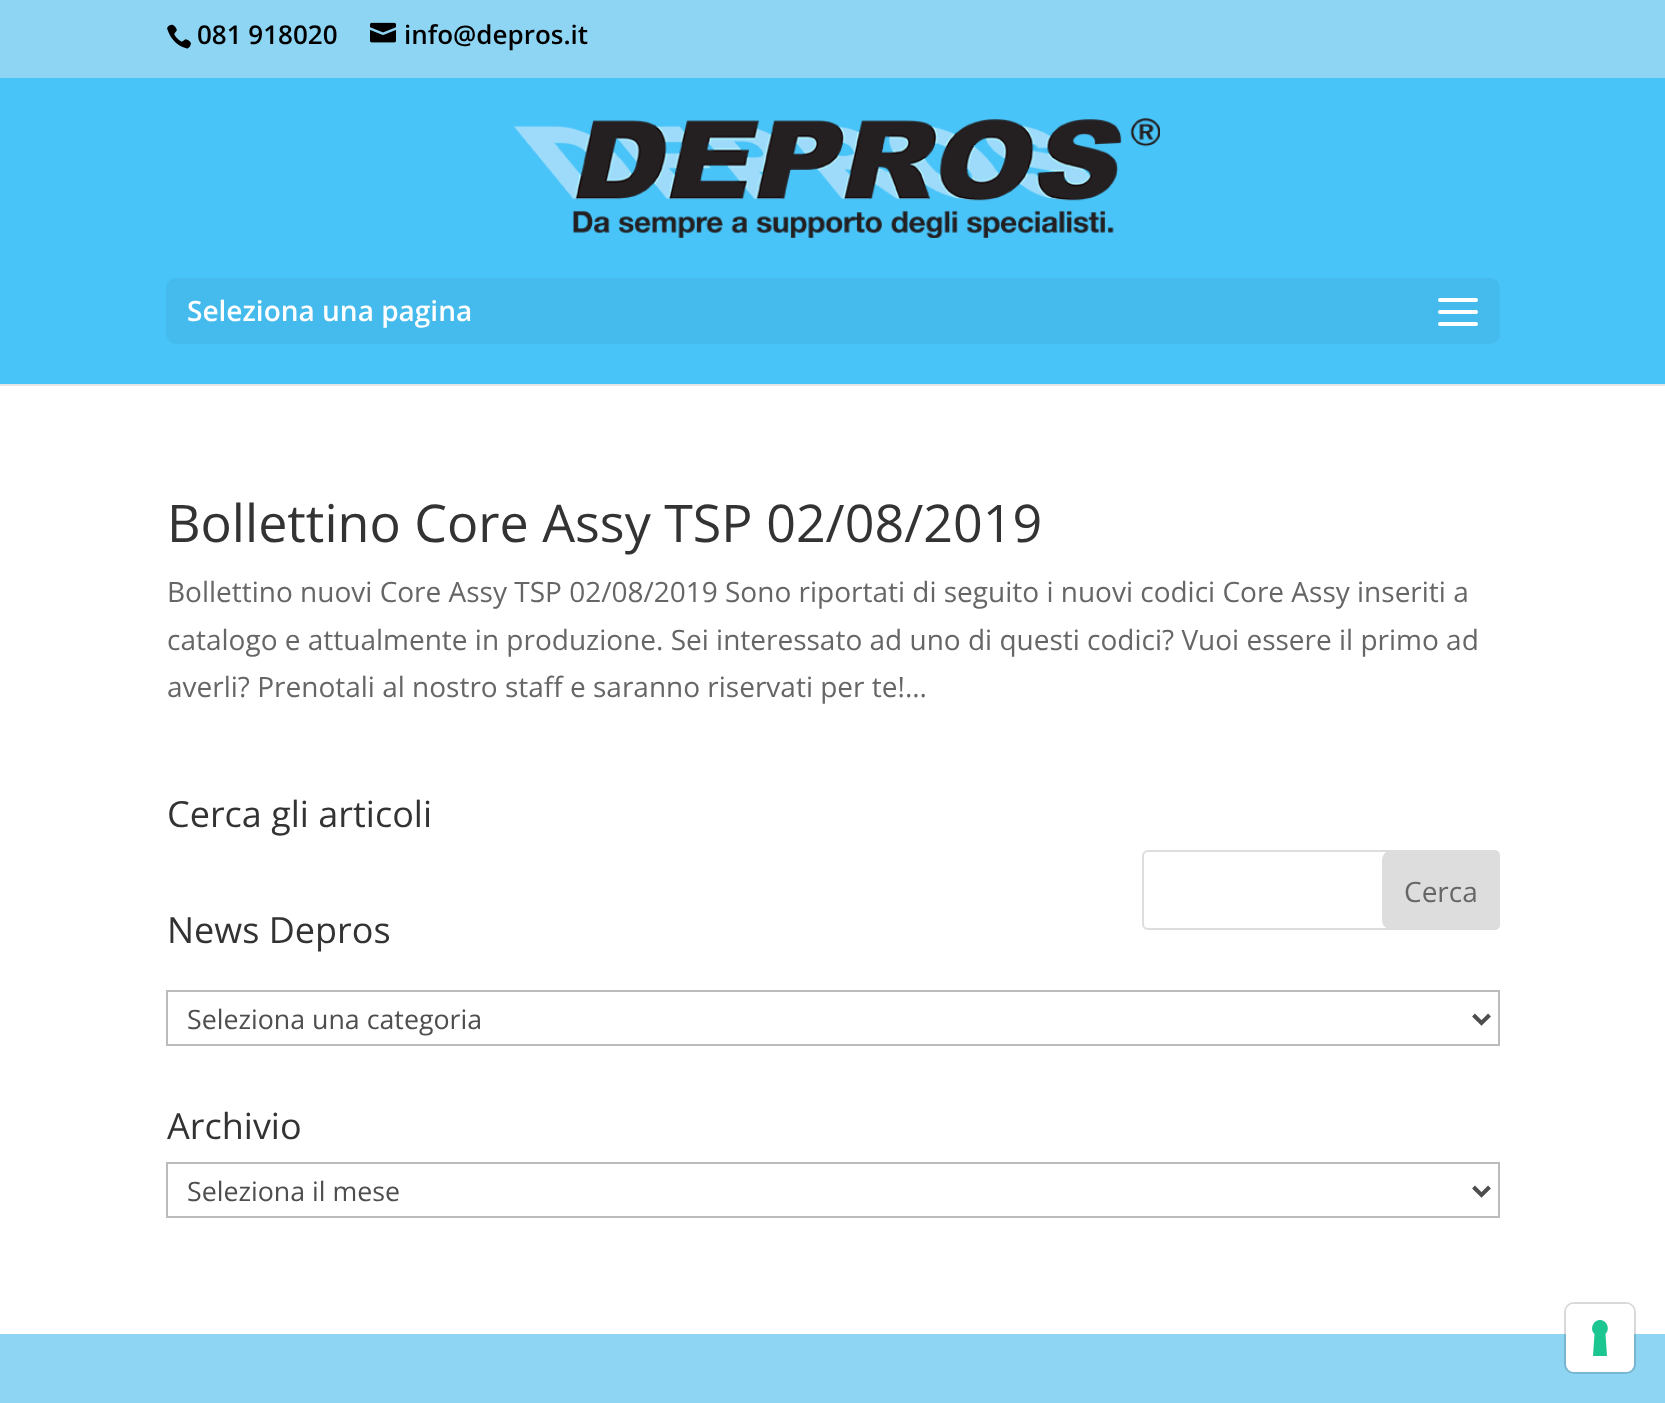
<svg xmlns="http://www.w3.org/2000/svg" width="1665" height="1403">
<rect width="100%" height="100%" fill="#fff"/>
<rect width="1665" height="78" fill="#8ed5f4"/>
<image x="167" y="24" width="24" height="25" href="media/1.png"/>
<text x="197" y="44" style="font-family:Open Sans;font-size:26px;font-weight:600;fill:#000">081 918020</text>
<image x="370" y="22" width="26" height="21" href="media/2.png"/>
<text x="404" y="44" style="font-family:Open Sans;font-size:26px;font-weight:600;fill:#000">info@depros.it</text>
<rect y="384" width="1665" height="2" fill="#e6e6e6"/>
<rect y="78" width="1665" height="306" fill="#49c4f9"/>
<image x="514" y="118" width="646" height="120" href="media/3.png"/>
<rect x="166" y="278" width="1334" height="66" rx="10" fill="#45baec"/>
<text x="187" y="321" style="font-family:Open Sans;font-size:28px;font-weight:600;fill:#fff">Seleziona una pagina</text>
<image x="1438" y="298" width="40" height="28" href="media/4.png"/>
<text x="167" y="542" style="font-family:Open Sans;font-size:52px;fill:#333">Bollettino Core Assy TSP 02/08/2019</text>
<text x="167" y="602" style="font-family:Open Sans;font-size:28px;fill:#666">Bollettino nuovi Core Assy TSP 02/08/2019 Sono riportati di seguito i nuovi codici Core Assy inseriti a</text>
<text x="167" y="650" style="font-family:Open Sans;font-size:28px;fill:#666">catalogo e attualmente in produzione. Sei interessato ad uno di questi codici? Vuoi essere il primo ad</text>
<text x="167" y="697" style="font-family:Open Sans;font-size:28px;fill:#666">averli? Prenotali al nostro staff e saranno riservati per te!...</text>
<text x="167" y="827" style="font-family:Open Sans;font-size:36px;fill:#333">Cerca gli articoli</text>
<rect x="1143" y="851" width="356" height="78" rx="5" fill="none" stroke="#ddd" stroke-width="2"/>
<path d="M1392 851h102c3 0 5 2 5 5v68c0 3-2 5-5 5h-102c-5 0-9-4-9-9v-60c0-5 4-9 9-9z" fill="#ddd" stroke="#ddd" stroke-width="2"/>
<text x="1404" y="902" style="font-family:Open Sans;font-size:28px;fill:#666">Cerca</text>
<text x="167" y="943" style="font-family:Open Sans;font-size:36px;fill:#333">News Depros</text>
<rect x="167" y="991" width="1332" height="54" fill="none" stroke="#bbb" stroke-width="2"/>
<path d="M1473.5 1015l8 8l8-8" fill="none" stroke="#4e4e4e" stroke-width="4"/>
<text x="187" y="1029" style="font-family:Open Sans;font-size:26.75px;fill:#4e4e4e">Seleziona una categoria</text>
<text x="167" y="1139" style="font-family:Open Sans;font-size:36px;fill:#333">Archivio</text>
<rect x="167" y="1163" width="1332" height="54" fill="none" stroke="#bbb" stroke-width="2"/>
<path d="M1473.5 1187l8 8l8-8" fill="none" stroke="#4e4e4e" stroke-width="4"/>
<text x="187" y="1201" style="font-family:Open Sans;font-size:26.75px;fill:#4e4e4e">Seleziona il mese</text>
<rect y="1334" width="1665" height="69" fill="#8ed5f4"/>
<rect x="1565" y="1303" width="70" height="70" rx="9" fill="none" stroke="#00000026" stroke-width="2"/>
<rect x="1566" y="1304" width="68" height="68" rx="8" fill="#fff"/>
<path d="M1600 1320c7 0 10.5 9.5 5.5 14l1.5 22h-14l1.5-22c-5-4.5-1.5-14 5.5-14z" fill="#1cc691" fill-rule="evenodd"/>
</svg>
